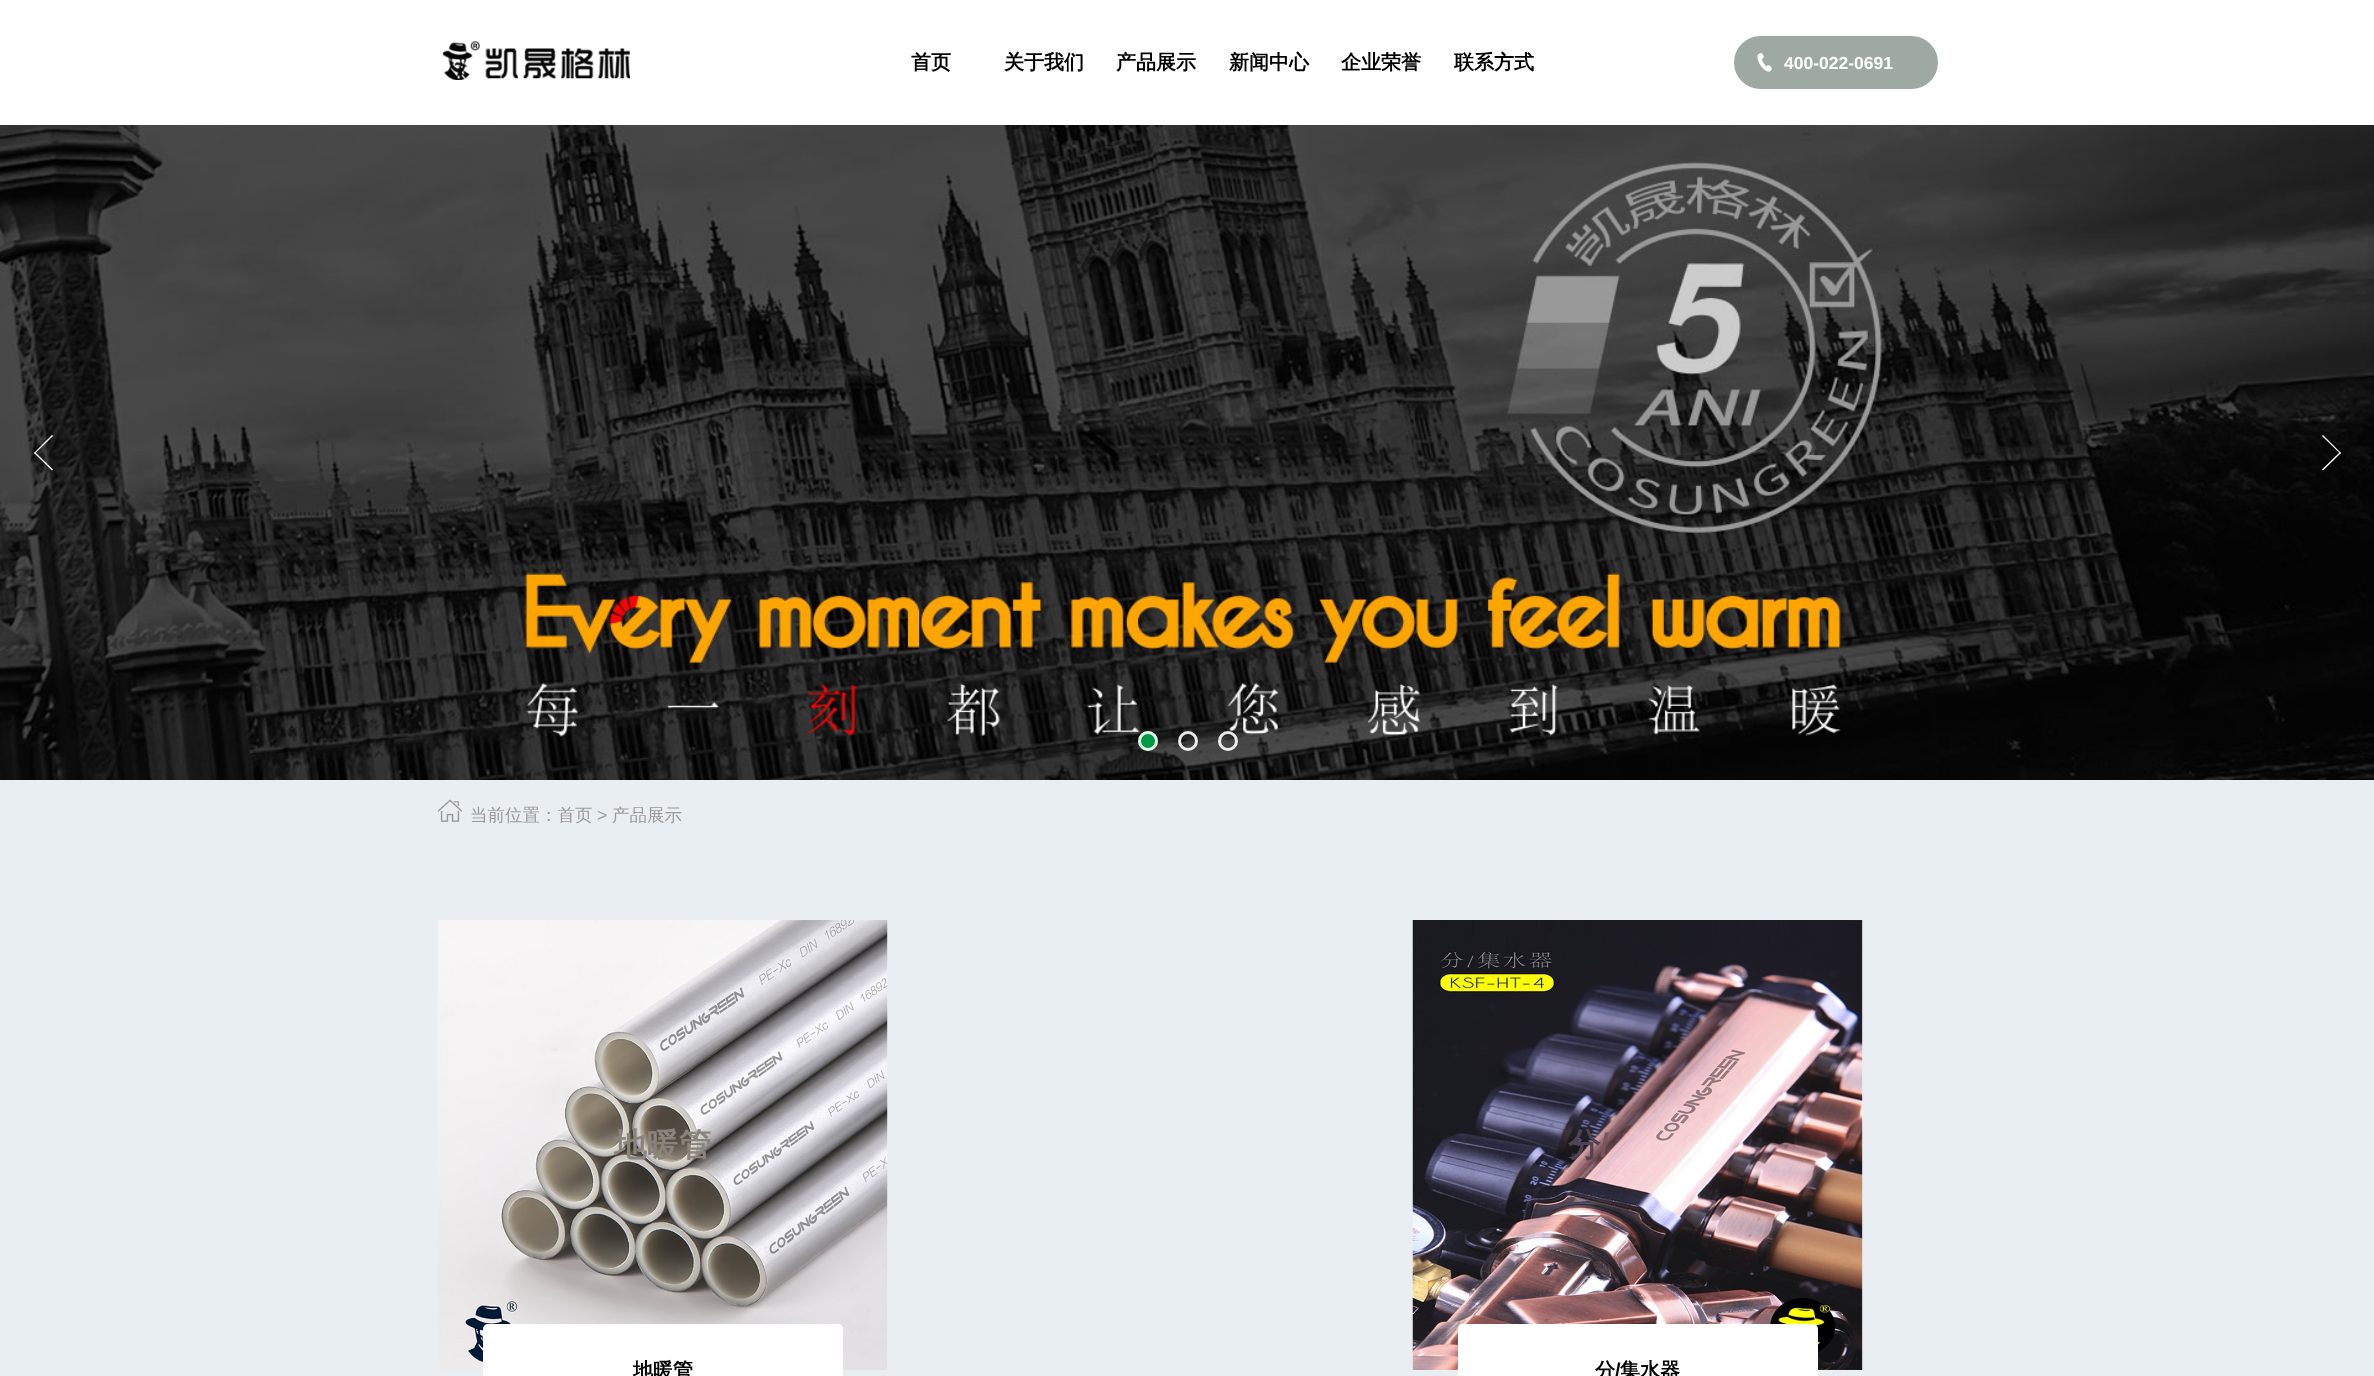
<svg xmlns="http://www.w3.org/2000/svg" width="2374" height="1376">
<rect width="100%" height="100%" fill="#e9eef3"/>
<rect width="2374" height="125" fill="#fff"/>
<image x="442" y="41" width="188" height="39" href="media/1.png"/>
<text x="911" y="69" style="font-family:WenQuanYi Zen Hei;font-size:20px;font-weight:bold;fill:#000">首页</text>
<text x="1004" y="69" style="font-family:WenQuanYi Zen Hei;font-size:20px;font-weight:bold;fill:#000">关于我们</text>
<text x="1116" y="69" style="font-family:WenQuanYi Zen Hei;font-size:20px;font-weight:bold;fill:#000">产品展示</text>
<text x="1229" y="69" style="font-family:WenQuanYi Zen Hei;font-size:20px;font-weight:bold;fill:#000">新闻中心</text>
<text x="1341" y="69" style="font-family:WenQuanYi Zen Hei;font-size:20px;font-weight:bold;fill:#000">企业荣誉</text>
<text x="1454" y="69" style="font-family:WenQuanYi Zen Hei;font-size:20px;font-weight:bold;fill:#000">联系方式</text>
<rect x="1734" y="36" width="204" height="53" rx="26.5" fill="#9da9a2"/>
<image x="1757" y="53" width="15" height="19" href="media/2.png"/>
<text x="1784" y="69" style="font-family:Liberation Sans;font-size:17.5px;font-weight:bold;fill:#fff">400-022-0691</text>
<image x="0" y="125" width="2374" height="655" href="media/3.png"/>
<path d="M35 452l18 17.5l-1 1l-18-17.5z" fill="#fff"/>
<path d="M52 435l1 1l-18 17.5l-1-.5z" fill="#fff"/>
<path d="M2323 435l18 18l-1 .5l-18-17.5z" fill="#fff"/>
<path d="M2340 452l1 1l-18 17.5l-1-1z" fill="#fff"/>
<circle cx="1148" cy="741" r="10" fill="#094"/>
<circle cx="1148" cy="741" r="8.5" fill="none" stroke="#ffffffe6" stroke-width="3"/>
<circle cx="1188" cy="741" r="8.5" fill="none" stroke="#ffffffe6" stroke-width="3"/>
<circle cx="1228" cy="741" r="8.5" fill="none" stroke="#ffffffe6" stroke-width="3"/>
<image x="437" y="799" width="26" height="23" href="media/4.png"/>
<text x="470" y="821" style="font-family:WenQuanYi Zen Hei;font-size:17.5px;font-weight:500;fill:#999">当前位置：首页</text>
<text x="597" y="821" style="font-family:Liberation Sans;font-size:17.5px;fill:#999">&gt;</text>
<text x="612" y="821" style="font-family:WenQuanYi Zen Hei;font-size:17.5px;font-weight:500;fill:#999">产品展示</text>
<image x="437" y="920" width="451" height="450" href="media/5.png"/>
<text x="614" y="1156" style="font-family:WenQuanYi Zen Hei;font-size:32.5px;font-weight:bold;fill:#8a847c">地暖管</text>
<rect x="483" y="1324" width="360" height="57" rx="5" fill="#fff"/>
<text x="633" y="1377" style="font-family:WenQuanYi Zen Hei;font-size:20px;font-weight:bold;fill:#000">地暖管</text>
<image x="1412" y="920" width="451" height="450" href="media/6.png"/>
<text x="1568" y="1156" style="font-family:WenQuanYi Zen Hei;font-size:32.5px;font-weight:bold;fill:#51424f">分</text>
<text x="1600" y="1156" style="font-family:Liberation Sans;font-size:32.5px;font-weight:bold;fill:#7a555c">/</text>
<rect x="1458" y="1324" width="360" height="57" rx="5" fill="#fff"/>
<text x="1595" y="1377" style="font-family:WenQuanYi Zen Hei;font-size:20px;font-weight:bold;fill:#000">分</text>
<text x="1615" y="1377" style="font-family:Liberation Sans;font-size:20px;font-weight:bold;fill:#000">/</text>
<text x="1620" y="1377" style="font-family:WenQuanYi Zen Hei;font-size:20px;font-weight:bold;fill:#000">集水器</text>
</svg>
